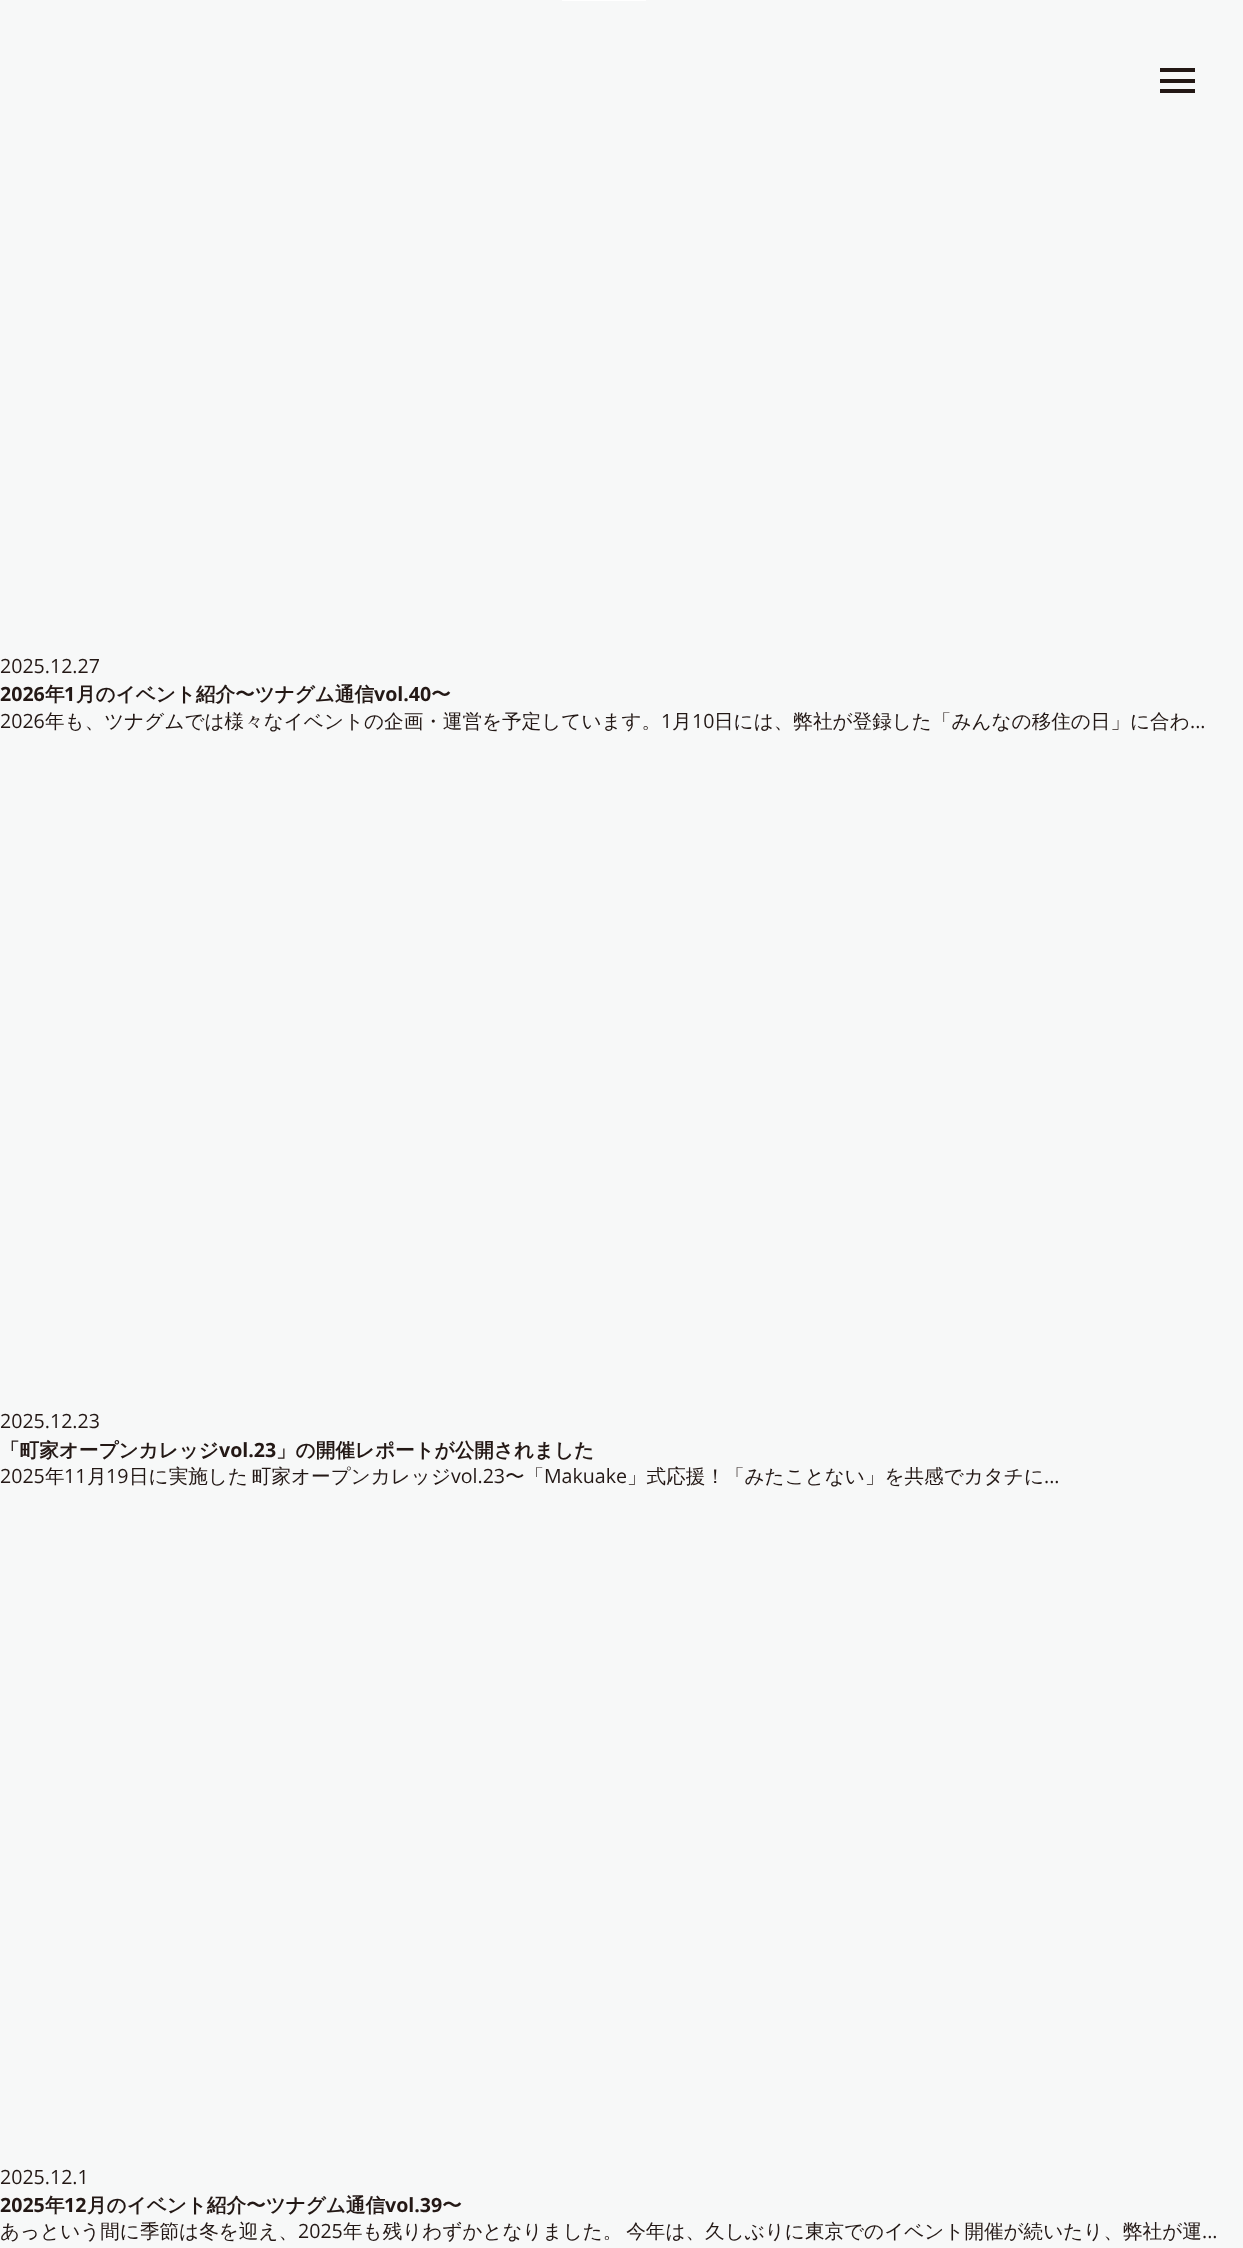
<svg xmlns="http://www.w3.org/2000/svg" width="1243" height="2248">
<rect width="100%" height="100%" fill="#f7f8f8"/>
<rect x="1160" y="68" width="35" height="4" fill="#231815"/>
<rect x="1160" y="79" width="35" height="4" fill="#231815"/>
<rect x="1160" y="89" width="35" height="4" fill="#231815"/>
<rect x="562" width="84" height="1" fill="#fff"/>
<text x="0" y="673" style="font-family:Open Sans;font-size:19.6px;fill:#231815">2025.12.27</text>
<text x="0" y="701" style="font-family:Open Sans;font-size:19.6px;font-weight:bold;fill:#231815">2026</text>
<text x="45" y="701" style="font-family:WenQuanYi Zen Hei;font-size:19.6px;font-weight:bold;fill:#231815">年</text>
<text x="64" y="701" style="font-family:Open Sans;font-size:19.6px;font-weight:bold;fill:#231815">1</text>
<text x="76" y="701" style="font-family:WenQuanYi Zen Hei;font-size:19.6px;font-weight:bold;fill:#231815">月のイベント紹介〜ツナグム通信</text>
<text x="374" y="701" style="font-family:Open Sans;font-size:19.6px;font-weight:bold;fill:#231815">vol.40</text>
<text x="431" y="701" style="font-family:WenQuanYi Zen Hei;font-size:19.6px;font-weight:bold;fill:#231815">〜</text>
<text x="0" y="728" style="font-family:Open Sans;font-size:19.6px;fill:#231815">2026</text>
<text x="45" y="728" style="font-family:WenQuanYi Zen Hei;font-size:19.6px;font-weight:500;fill:#231815">年も、ツナグムでは様々なイベントの企画・運営を予定しています。</text>
<text x="661" y="728" style="font-family:Open Sans;font-size:19.6px;fill:#231815">1</text>
<text x="672" y="728" style="font-family:WenQuanYi Zen Hei;font-size:19.6px;font-weight:500;fill:#231815">月</text>
<text x="692" y="728" style="font-family:Open Sans;font-size:19.6px;fill:#231815">10</text>
<text x="714" y="728" style="font-family:WenQuanYi Zen Hei;font-size:19.6px;font-weight:500;fill:#231815">日には、弊社が登録した「みんなの移住の日」に合わ</text>
<text x="1190" y="728" style="font-family:Open Sans;font-size:19.6px;fill:#231815">...</text>
<text x="0" y="1428" style="font-family:Open Sans;font-size:19.6px;fill:#231815">2025.12.23</text>
<text x="0" y="1457" style="font-family:WenQuanYi Zen Hei;font-size:19.6px;font-weight:bold;fill:#231815">「町家オープンカレッジ</text>
<text x="219" y="1457" style="font-family:Open Sans;font-size:19.6px;font-weight:bold;fill:#231815">vol.23</text>
<text x="276" y="1457" style="font-family:WenQuanYi Zen Hei;font-size:19.6px;font-weight:bold;fill:#231815">」の開催レポートが公開されました</text>
<text x="0" y="1483" style="font-family:Open Sans;font-size:19.6px;fill:#231815">2025</text>
<text x="45" y="1483" style="font-family:WenQuanYi Zen Hei;font-size:19.6px;font-weight:500;fill:#231815">年</text>
<text x="64" y="1483" style="font-family:Open Sans;font-size:19.6px;fill:#231815">11</text>
<text x="87" y="1483" style="font-family:WenQuanYi Zen Hei;font-size:19.6px;font-weight:500;fill:#231815">月</text>
<text x="106" y="1483" style="font-family:Open Sans;font-size:19.6px;fill:#231815">19</text>
<text x="129" y="1483" word-spacing="-2" style="font-family:WenQuanYi Zen Hei;font-size:19.6px;font-weight:500;fill:#231815">日に実施した 町家オープンカレッジ</text>
<text x="451" y="1483" style="font-family:Open Sans;font-size:19.6px;fill:#231815">vol.23</text>
<text x="505" y="1483" style="font-family:WenQuanYi Zen Hei;font-size:19.6px;font-weight:500;fill:#231815">〜「</text>
<text x="544" y="1483" style="font-family:Open Sans;font-size:19.6px;fill:#231815">Makuake</text>
<text x="627" y="1483" style="font-family:WenQuanYi Zen Hei;font-size:19.6px;font-weight:500;fill:#231815">」式応援！「みたことない」を共感でカタチに</text>
<text x="1044" y="1483" style="font-family:Open Sans;font-size:19.6px;fill:#231815">...</text>
<text x="0" y="2184" style="font-family:Open Sans;font-size:19.6px;fill:#231815">2025.12.1</text>
<text x="0" y="2212" style="font-family:Open Sans;font-size:19.6px;font-weight:bold;fill:#231815">2025</text>
<text x="45" y="2212" style="font-family:WenQuanYi Zen Hei;font-size:19.6px;font-weight:bold;fill:#231815">年</text>
<text x="64" y="2212" style="font-family:Open Sans;font-size:19.6px;font-weight:bold;fill:#231815">12</text>
<text x="87" y="2212" style="font-family:WenQuanYi Zen Hei;font-size:19.6px;font-weight:bold;fill:#231815">月のイベント紹介〜ツナグム通信</text>
<text x="385" y="2212" style="font-family:Open Sans;font-size:19.6px;font-weight:bold;fill:#231815">vol.39</text>
<text x="442" y="2212" style="font-family:WenQuanYi Zen Hei;font-size:19.6px;font-weight:bold;fill:#231815">〜</text>
<text x="0" y="2238" style="font-family:WenQuanYi Zen Hei;font-size:19.6px;font-weight:500;fill:#231815">あっという間に季節は冬を迎え、</text>
<text x="298" y="2238" style="font-family:Open Sans;font-size:19.6px;fill:#231815">2025</text>
<text x="343" y="2238" word-spacing="-2" style="font-family:WenQuanYi Zen Hei;font-size:19.6px;font-weight:500;fill:#231815">年も残りわずかとなりました。 今年は、久しぶりに東京でのイベント開催が続いたり、弊社が運</text>
<text x="1202" y="2238" style="font-family:Open Sans;font-size:19.6px;fill:#231815">...</text>
</svg>
